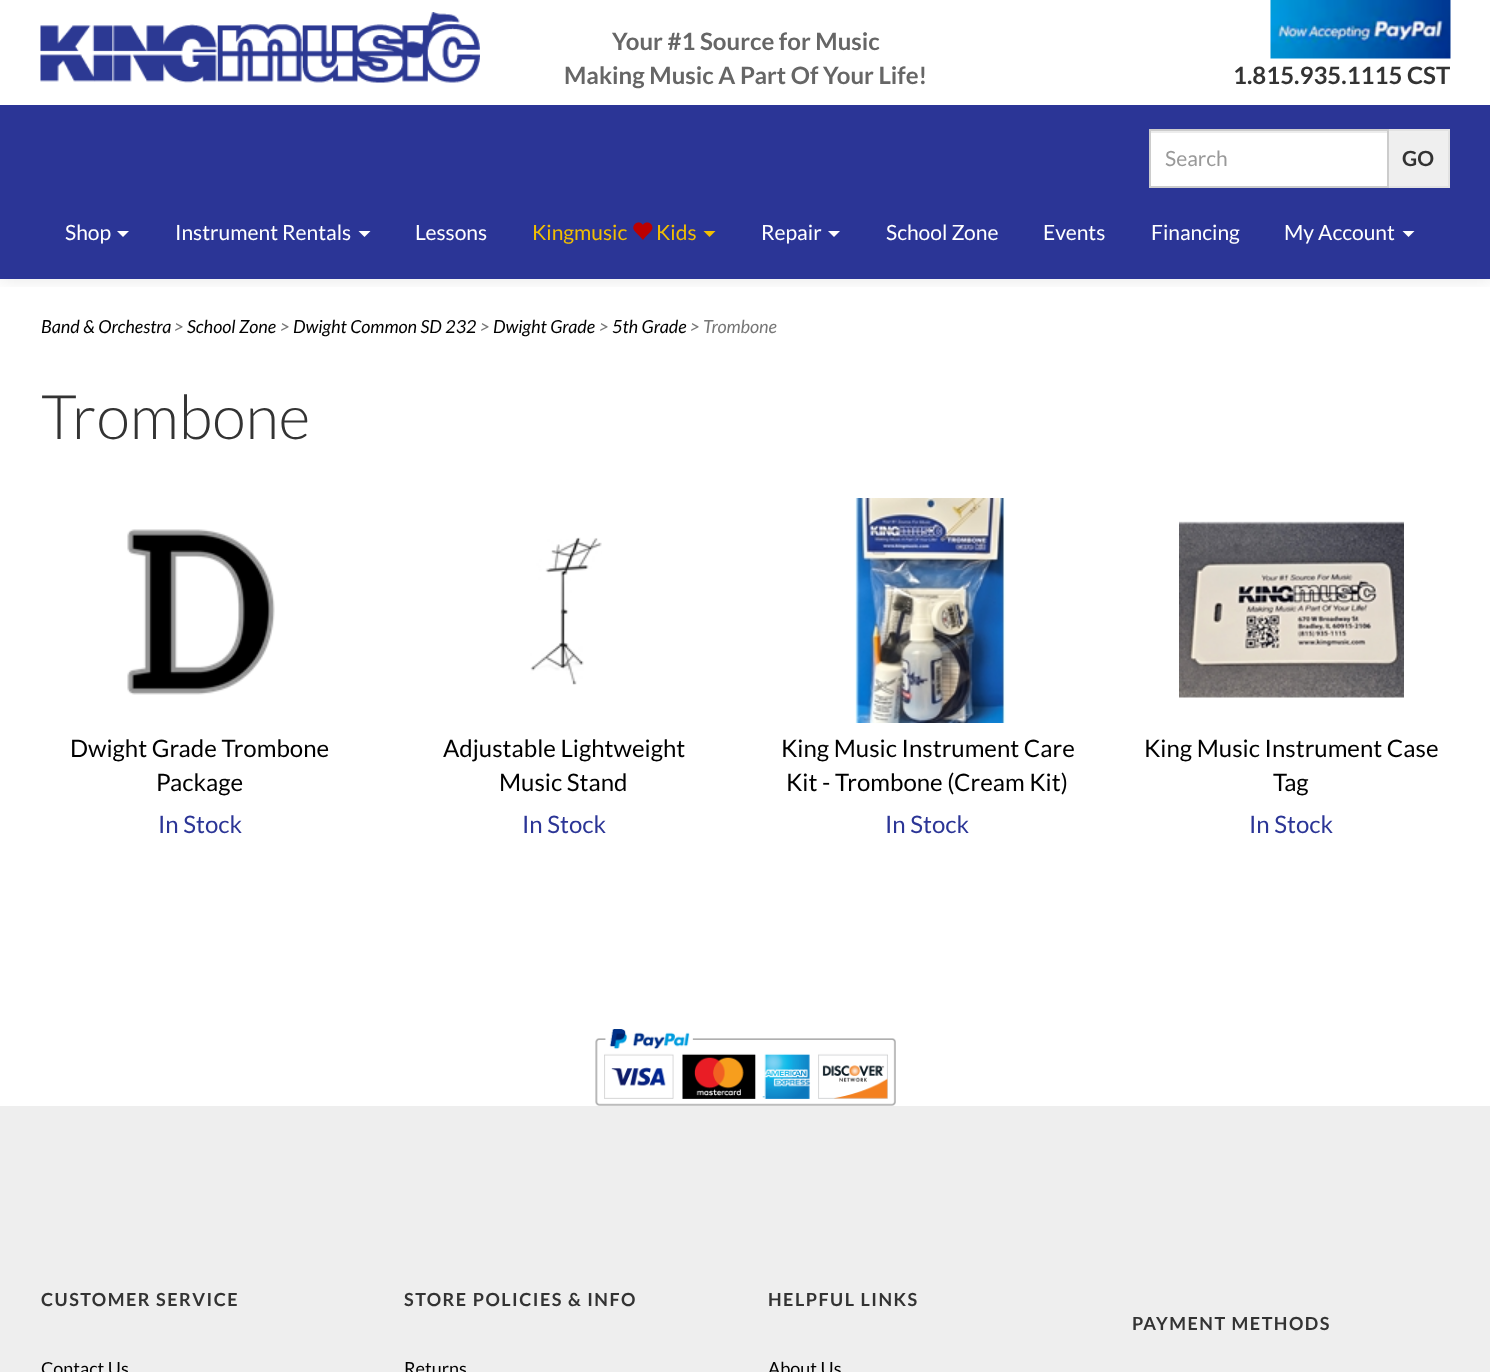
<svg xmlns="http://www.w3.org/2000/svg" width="1490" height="1372">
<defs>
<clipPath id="clip1"><rect x="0" y="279" width="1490" height="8"/></clipPath>
</defs>
<rect width="100%" height="100%" fill="#fff"/>
<g clip-path="url(#clip1)">
<rect width="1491" height="279" fill="#0000001a" filter="blur(9px)"/>
</g>
<image x="40" y="12" width="440" height="71" href="media/1.png"/>
<text x="612" y="50" style="font-family:Lato;font-size:24px;font-weight:bold;fill:#666">Your #1 Source for Music</text>
<text x="564" y="84" style="font-family:Lato;font-size:24px;font-weight:bold;fill:#666">Making Music A Part Of Your Life!</text>
<image x="1270" y="0" width="181" height="59" href="media/2.png"/>
<text x="1233" y="84" style="font-family:Lato;font-size:24px;font-weight:bold;fill:#333">1.815.935.1115 CST</text>
<rect y="105" width="1490" height="174" fill="#2b3596"/>
<rect x="1151" y="133" width="236" height="53" fill="#fff"/>
<rect x="1151" y="131" width="237" height="2" fill="#ececec"/>
<rect x="1150" y="130" width="238" height="57" fill="none" stroke="#ccc" stroke-width="2"/>
<text x="1165" y="166" style="font-family:Lato;font-size:21px;fill:#999">Search</text>
<rect x="1389" y="131" width="59" height="55" fill="#efefef"/>
<rect x="1389" y="129" width="60" height="2" fill="#e2e2e2"/>
<rect x="1448" y="129" width="2" height="59" fill="#e2e2e2"/>
<rect x="1389" y="186" width="60" height="2" fill="#e2e2e2"/>
<text x="1402" y="166" style="font-family:Lato;font-size:21px;font-weight:bold;fill:#333">GO</text>
<text x="65" y="240" style="font-family:Lato;font-size:21px;fill:#fff">Shop</text>
<path d="M117 231h12l-6 6z" fill="#fff"/>
<text x="175" y="240" style="font-family:Lato;font-size:21px;fill:#fff">Instrument Rentals</text>
<path d="M358.5 231h12l-6 6z" fill="#fff"/>
<text x="415" y="240" style="font-family:Lato;font-size:21px;fill:#fff">Lessons</text>
<text x="532" y="240" style="font-family:Lato;font-size:21px;fill:#f1be02">Kingmusic</text>
<image x="633" y="222" width="20" height="18" href="media/3.png"/>
<text x="656" y="240" style="font-family:Lato;font-size:21px;fill:#f1be02">Kids</text>
<path d="M703.5 231h12l-6 6z" fill="#f1be02"/>
<text x="761" y="240" style="font-family:Lato;font-size:21px;fill:#fff">Repair</text>
<path d="M828 231h12l-6 6z" fill="#fff"/>
<text x="886" y="240" style="font-family:Lato;font-size:21px;fill:#fff">School Zone</text>
<text x="1043" y="240" style="font-family:Lato;font-size:21px;fill:#fff">Events</text>
<text x="1151" y="240" style="font-family:Lato;font-size:21px;fill:#fff">Financing</text>
<text x="1284" y="240" style="font-family:Lato;font-size:21px;fill:#fff">My Account</text>
<path d="M1402.5 231h12l-6 6z" fill="#fff"/>
<text x="41" y="333" style="font-family:Lato;font-size:18px;font-style:italic;fill:#000">Band &amp; Orchestra</text>
<text x="174" y="333" style="font-family:Lato;font-size:18px;font-style:italic;fill:#777">&gt;</text>
<text x="187" y="333" style="font-family:Lato;font-size:18px;font-style:italic;fill:#000">School Zone</text>
<text x="280" y="333" style="font-family:Lato;font-size:18px;font-style:italic;fill:#777">&gt;</text>
<text x="293" y="333" style="font-family:Lato;font-size:18px;font-style:italic;fill:#000">Dwight Common SD 232</text>
<text x="480" y="333" style="font-family:Lato;font-size:18px;font-style:italic;fill:#777">&gt;</text>
<text x="493" y="333" style="font-family:Lato;font-size:18px;font-style:italic;fill:#000">Dwight Grade</text>
<text x="599" y="333" style="font-family:Lato;font-size:18px;font-style:italic;fill:#777">&gt;</text>
<text x="612" y="333" style="font-family:Lato;font-size:18px;font-style:italic;fill:#000">5th Grade</text>
<text x="690" y="333" style="font-family:Lato;font-size:18px;font-style:italic;fill:#777">&gt; Trombone</text>
<text x="41" y="439" style="font-family:Lato;font-size:61.5px;font-weight:300;fill:#333">Trombone</text>
<image x="127" y="529" width="148" height="166" href="media/4.png"/>
<text x="70" y="757" style="font-family:Lato;font-size:24px;fill:#000">Dwight Grade Trombone</text>
<text x="156" y="791" style="font-family:Lato;font-size:24px;fill:#000">Package</text>
<text x="158" y="833" style="font-family:Lato;font-size:24px;fill:#2b3596">In Stock</text>
<image x="530" y="537" width="72" height="148" href="media/5.png"/>
<text x="443" y="757" style="font-family:Lato;font-size:24px;fill:#000">Adjustable Lightweight</text>
<text x="499" y="791" style="font-family:Lato;font-size:24px;fill:#000">Music Stand</text>
<text x="522" y="833" style="font-family:Lato;font-size:24px;fill:#2b3596">In Stock</text>
<image x="855" y="498" width="151" height="225" href="media/6.png"/>
<text x="781" y="757" style="font-family:Lato;font-size:24px;fill:#000">King Music Instrument Care</text>
<text x="786" y="791" style="font-family:Lato;font-size:24px;fill:#000">Kit - Trombone (Cream Kit)</text>
<text x="885" y="833" style="font-family:Lato;font-size:24px;fill:#2b3596">In Stock</text>
<image x="1179" y="521" width="225" height="177" href="media/7.png"/>
<text x="1144" y="757" style="font-family:Lato;font-size:24px;fill:#000">King Music Instrument Case</text>
<text x="1273" y="791" style="font-family:Lato;font-size:24px;fill:#000">Tag</text>
<text x="1249" y="833" style="font-family:Lato;font-size:24px;fill:#2b3596">In Stock</text>
<image x="595" y="1029" width="301" height="77" href="media/8.png"/>
<rect y="1106" width="1490" height="266" fill="#eee"/>
<text x="41" y="1306" style="font-family:Lato;font-size:18px;font-weight:bold;letter-spacing:1.5px;fill:#333">CUSTOMER SERVICE</text>
<text x="41" y="1375" style="font-family:Lato;font-size:18px;fill:#000">Contact Us</text>
<text x="404" y="1306" style="font-family:Lato;font-size:18px;font-weight:bold;letter-spacing:1.5px;fill:#333">STORE POLICIES &amp; INFO</text>
<text x="404" y="1375" style="font-family:Lato;font-size:18px;fill:#000">Returns</text>
<text x="768" y="1306" style="font-family:Lato;font-size:18px;font-weight:bold;letter-spacing:1.5px;fill:#333">HELPFUL LINKS</text>
<text x="768" y="1375" style="font-family:Lato;font-size:18px;fill:#000">About Us</text>
<text x="1132" y="1330" style="font-family:Lato;font-size:18px;font-weight:bold;letter-spacing:1.5px;fill:#333">PAYMENT METHODS</text>
</svg>
